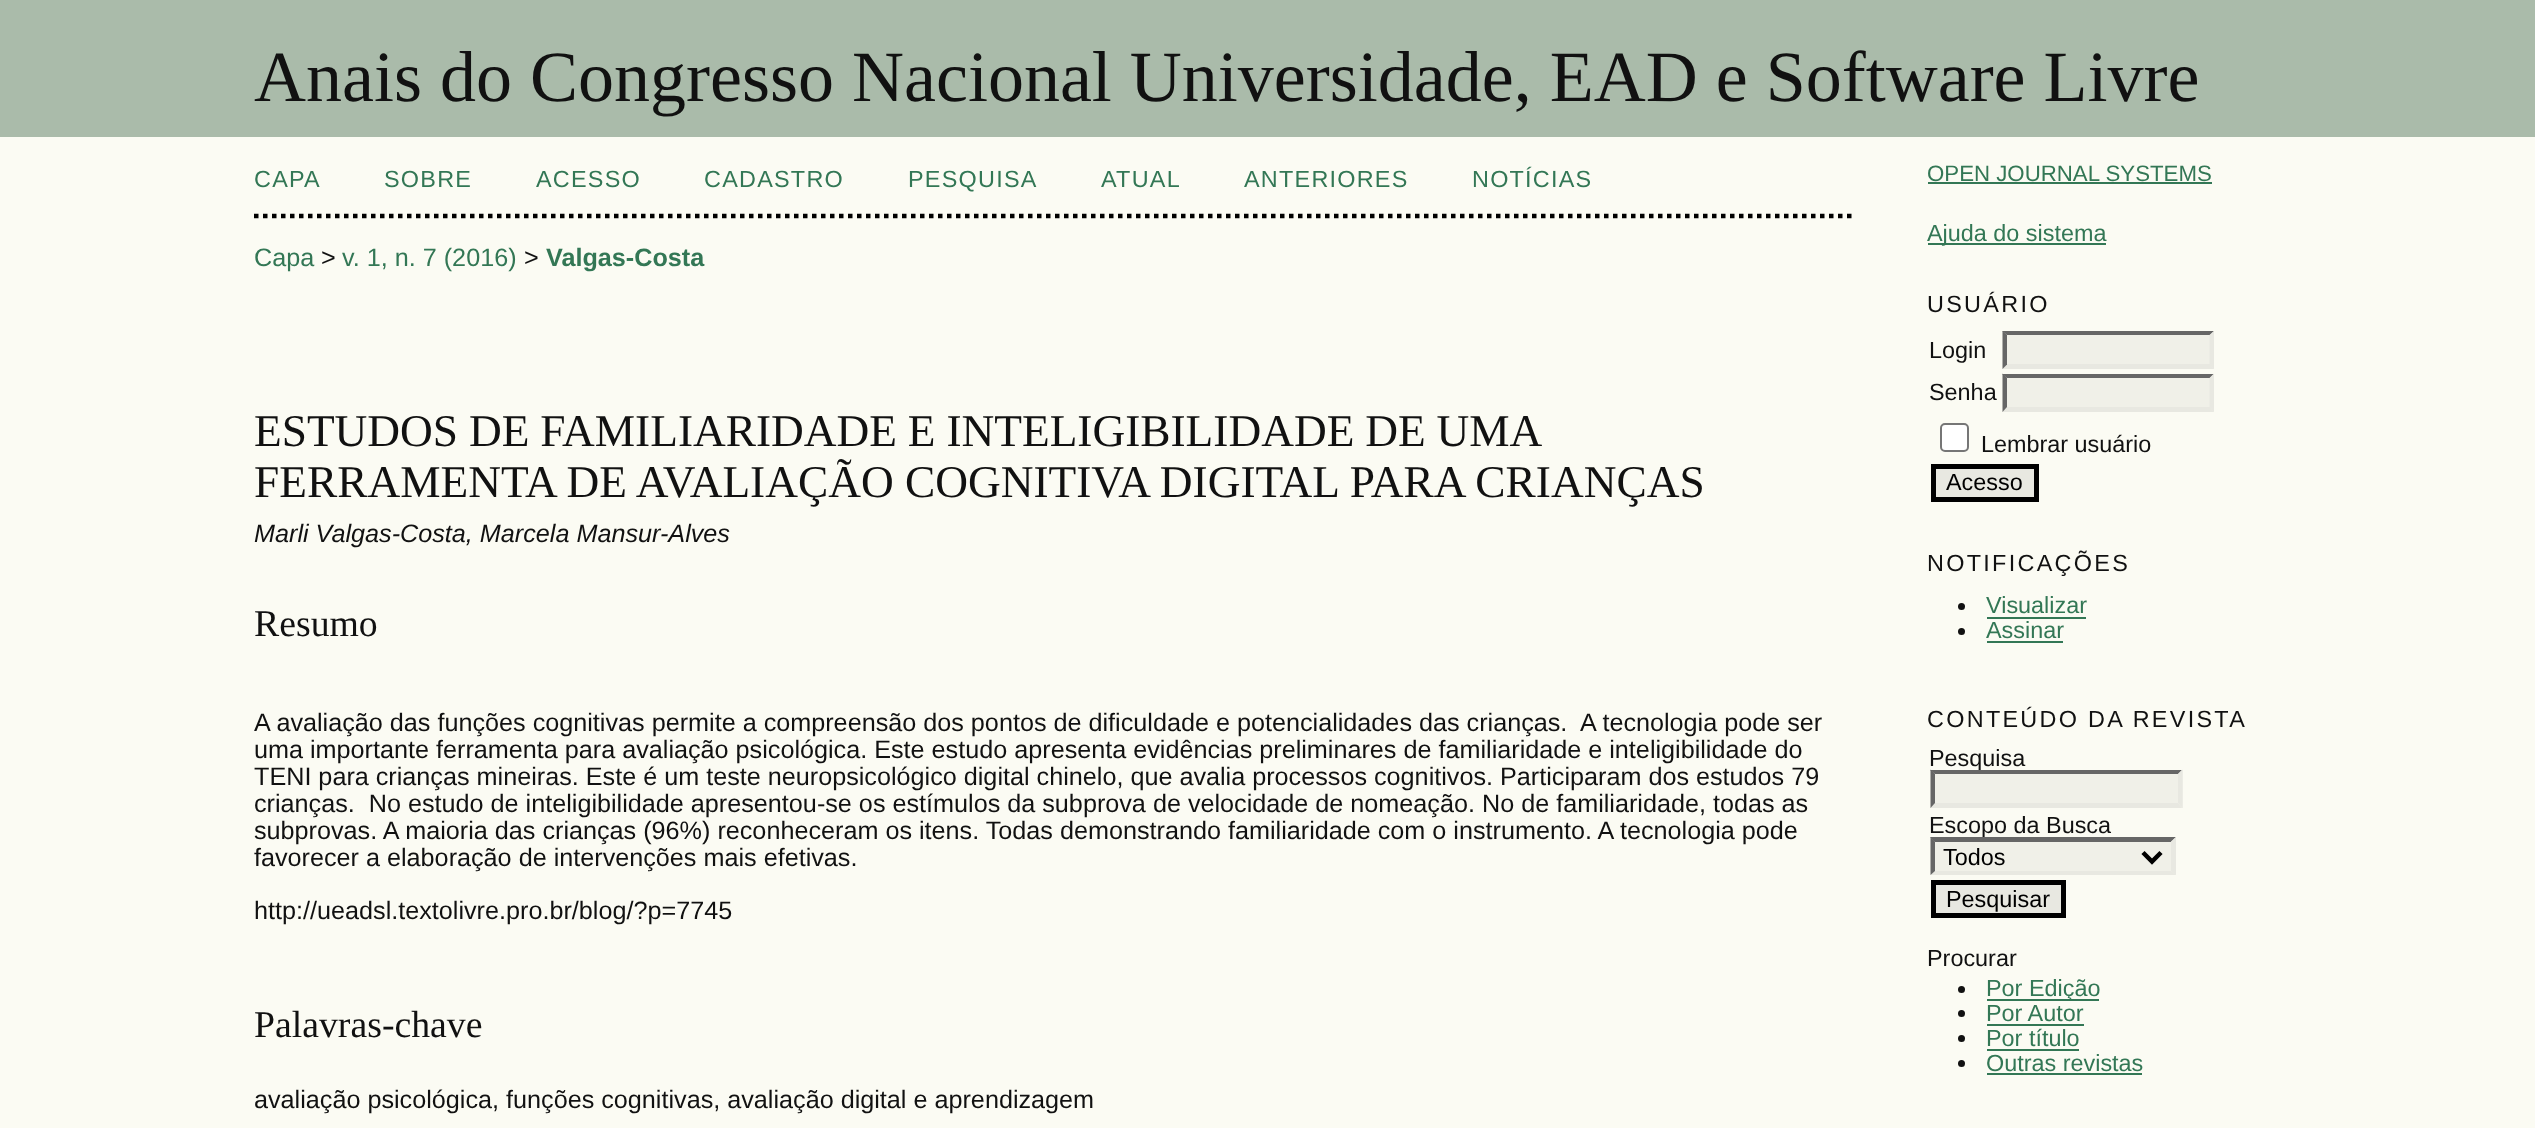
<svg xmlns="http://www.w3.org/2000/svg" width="2535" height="1128">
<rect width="100%" height="100%" fill="#fbfbf3"/>
<rect width="2535" height="137" fill="#aba"/>
<text x="254" y="101" style="font-family:Liberation Serif;font-size:72px;fill:#111">Anais do Congresso Nacional Universidade, EAD e Software Livre</text>
<path d="M254 216h1598" fill="none" stroke="#000" stroke-width="4.5" stroke-dasharray="4.5 4.5"/>
<text x="254" y="187" style="font-family:Liberation Sans;font-size:23.4px;letter-spacing:1.25px;fill:#375">CAPA</text>
<text x="384" y="187" style="font-family:Liberation Sans;font-size:23.4px;letter-spacing:1.25px;fill:#375">SOBRE</text>
<text x="536" y="187" style="font-family:Liberation Sans;font-size:23.4px;letter-spacing:1.25px;fill:#375">ACESSO</text>
<text x="704" y="187" style="font-family:Liberation Sans;font-size:23.4px;letter-spacing:1.25px;fill:#375">CADASTRO</text>
<text x="908" y="187" style="font-family:Liberation Sans;font-size:23.4px;letter-spacing:1.25px;fill:#375">PESQUISA</text>
<text x="1101" y="187" style="font-family:Liberation Sans;font-size:23.4px;letter-spacing:1.25px;fill:#375">ATUAL</text>
<text x="1244" y="187" style="font-family:Liberation Sans;font-size:23.4px;letter-spacing:1.25px;fill:#375">ANTERIORES</text>
<text x="1472" y="187" style="font-family:Liberation Sans;font-size:23.4px;letter-spacing:1.25px;fill:#375">NOTÍCIAS</text>
<text x="254" y="266" style="font-family:Liberation Sans;font-size:25.2px;fill:#375">Capa</text>
<text x="321" y="266" style="font-family:Liberation Sans;font-size:25.2px;fill:#111">&gt;</text>
<text x="342" y="266" style="font-family:Liberation Sans;font-size:25.2px;fill:#375">v. 1, n. 7 (2016)</text>
<text x="524" y="266" style="font-family:Liberation Sans;font-size:25.2px;fill:#111">&gt;</text>
<text x="546" y="266" style="font-family:Liberation Sans;font-size:25.2px;font-weight:bold;fill:#375">Valgas-Costa</text>
<text x="254" y="446" word-spacing="-0.5" style="font-family:Liberation Serif;font-size:45.35px;fill:#111">ESTUDOS DE FAMILIARIDADE E INTELIGIBILIDADE DE UMA</text>
<text x="254" y="497" style="font-family:Liberation Serif;font-size:45.35px;fill:#111">FERRAMENTA DE AVALIAÇÃO COGNITIVA DIGITAL PARA CRIANÇAS</text>
<text x="254" y="542" style="font-family:Liberation Sans;font-size:25.2px;font-style:italic;fill:#111">Marli Valgas-Costa, Marcela Mansur-Alves</text>
<text x="254" y="636" style="font-family:Liberation Serif;font-size:37.75px;fill:#111">Resumo</text>
<text x="254" y="731" style="font-family:Liberation Sans;font-size:25.2px;fill:#111" xml:space="preserve">A avaliação das funções cognitivas permite a compreensão dos pontos de dificuldade e potencialidades das crianças.  A tecnologia pode ser</text>
<text x="254" y="758" style="font-family:Liberation Sans;font-size:25.2px;fill:#111">uma importante ferramenta para avaliação psicológica. Este estudo apresenta evidências preliminares de familiaridade e inteligibilidade do</text>
<text x="254" y="785" style="font-family:Liberation Sans;font-size:25.2px;fill:#111">TENI para crianças mineiras. Este é um teste neuropsicológico digital chinelo, que avalia processos cognitivos. Participaram dos estudos 79</text>
<text x="254" y="812" style="font-family:Liberation Sans;font-size:25.2px;fill:#111" xml:space="preserve">crianças.  No estudo de inteligibilidade apresentou-se os estímulos da subprova de velocidade de nomeação. No de familiaridade, todas as</text>
<text x="254" y="839" style="font-family:Liberation Sans;font-size:25.2px;fill:#111">subprovas. A maioria das crianças (96%) reconheceram os itens. Todas demonstrando familiaridade com o instrumento. A tecnologia pode</text>
<text x="254" y="866" style="font-family:Liberation Sans;font-size:25.2px;fill:#111">favorecer a elaboração de intervenções mais efetivas.</text>
<text x="254" y="919" style="font-family:Liberation Sans;font-size:25.2px;fill:#111">http://ueadsl.textolivre.pro.br/blog/?p=7745</text>
<text x="254" y="1037" style="font-family:Liberation Serif;font-size:37.75px;fill:#111">Palavras-chave</text>
<text x="254" y="1108" style="font-family:Liberation Sans;font-size:25.2px;fill:#111">avaliação psicológica, funções cognitivas, avaliação digital e aprendizagem</text>
<text x="1927" y="181" style="font-family:Liberation Sans;font-size:22.25px;fill:#375">OPEN JOURNAL SYSTEMS</text>
<rect x="1928" y="182" width="284" height="2" fill="#375"/>
<rect x="1928" y="243" width="178" height="2" fill="#375"/>
<text x="1927" y="241" style="font-family:Liberation Sans;font-size:23.4px;fill:#375">Ajuda do sistema</text>
<text x="1927" y="312" style="font-family:Liberation Sans;font-size:23.4px;letter-spacing:2.3px;fill:#111">USUÁRIO</text>
<text x="1929" y="358" style="font-family:Liberation Sans;font-size:23.4px;fill:#111">Login</text>
<rect x="2003" y="331" width="211" height="38" fill="#f0f0e8"/>
<path d="M2002 331h212l-4 4h-203z" fill="#666"/>
<path d="M2214 331v38l-4.5-4.5v-29.5z" fill="#e8e8e1"/>
<path d="M2214 369h-212l5-5h203z" fill="#e8e8e1"/>
<path d="M2002.5 369v-38l4.5 4v29.5z" fill="#666"/>
<text x="1929" y="400" style="font-family:Liberation Sans;font-size:23.4px;fill:#111">Senha</text>
<rect x="2003" y="374" width="211" height="38" fill="#f0f0e8"/>
<path d="M2002 374h212l-4 4h-203z" fill="#666"/>
<path d="M2214 373.5v38.5l-4.5-5v-29z" fill="#e8e8e1"/>
<path d="M2214 412h-212l5-5h203z" fill="#e8e8e1"/>
<path d="M2002.5 412v-38.5l4.5 4.5v29z" fill="#666"/>
<rect x="1941" y="424" width="27" height="27" rx="4" fill="#fff" stroke="#767676" stroke-width="2"/>
<text x="1981" y="452" style="font-family:Liberation Sans;font-size:23.4px;fill:#111">Lembrar usuário</text>
<rect x="1933.5" y="466.5" width="103" height="33" fill="#e8e8e1" stroke="#000" stroke-width="5"/>
<text x="1946" y="490" style="font-family:Liberation Sans;font-size:23.4px;fill:#000">Acesso</text>
<text x="1927" y="571" style="font-family:Liberation Sans;font-size:23.4px;letter-spacing:2.3px;fill:#111">NOTIFICAÇÕES</text>
<circle cx="1961.5" cy="606.5" r="3.5" fill="#111"/>
<text x="1986" y="613" style="font-family:Liberation Sans;font-size:23.4px;fill:#375">Visualizar</text>
<rect x="1987" y="617" width="99" height="2" fill="#375"/>
<circle cx="1961.5" cy="631.5" r="3.5" fill="#111"/>
<text x="1986" y="638" style="font-family:Liberation Sans;font-size:23.4px;fill:#375">Assinar</text>
<rect x="1987" y="641" width="76" height="2" fill="#375"/>
<text x="1927" y="727" style="font-family:Liberation Sans;font-size:23.4px;letter-spacing:2.3px;fill:#111">CONTEÚDO DA REVISTA</text>
<text x="1929" y="766" style="font-family:Liberation Sans;font-size:23.4px;fill:#111">Pesquisa</text>
<rect x="1931" y="770" width="252" height="38" fill="#f0f0e8"/>
<path d="M1930 770h252l-4 4h-243z" fill="#666"/>
<path d="M2182.5 769.5v38.5l-4.5-5v-29z" fill="#e8e8e1"/>
<path d="M2182 808h-252l5-5h243z" fill="#e8e8e1"/>
<path d="M1930.5 808v-38.5l4.5 4.5v29z" fill="#666"/>
<text x="1929" y="833" style="font-family:Liberation Sans;font-size:23.4px;fill:#111">Escopo da Busca</text>
<rect x="1931" y="837" width="245" height="38" fill="#f0f0e8"/>
<path d="M1930 837h246l-5 5h-236z" fill="#666"/>
<path d="M2176 837v38l-5-4v-29.5z" fill="#e8e8e1"/>
<path d="M2176 875h-246l5-4h236z" fill="#e8e8e1"/>
<path d="M1930.5 875v-38l4.5 4.5v29.5z" fill="#666"/>
<path d="M2143 852.5l9 9l9-9" fill="none" stroke="#000" stroke-width="4.5"/>
<text x="1943" y="865" style="font-family:Liberation Sans;font-size:23.4px;fill:#000">Todos</text>
<rect x="1933.5" y="882.5" width="130" height="33" fill="#e8e8e1" stroke="#000" stroke-width="5"/>
<text x="1946" y="907" style="font-family:Liberation Sans;font-size:23.4px;fill:#000">Pesquisar</text>
<text x="1927" y="966" style="font-family:Liberation Sans;font-size:23.4px;fill:#111">Procurar</text>
<circle cx="1961.5" cy="989.5" r="3.5" fill="#111"/>
<rect x="1987" y="999" width="112" height="2" fill="#375"/>
<text x="1986" y="996" style="font-family:Liberation Sans;font-size:23.4px;fill:#375">Por Edição</text>
<circle cx="1961.5" cy="1013.5" r="3.5" fill="#111"/>
<text x="1986" y="1021" style="font-family:Liberation Sans;font-size:23.4px;fill:#375">Por Autor</text>
<rect x="1987" y="1024" width="97" height="2" fill="#375"/>
<circle cx="1961.5" cy="1038.5" r="3.5" fill="#111"/>
<text x="1986" y="1046" style="font-family:Liberation Sans;font-size:23.4px;fill:#375">Por título</text>
<rect x="1987" y="1049" width="92" height="2" fill="#375"/>
<circle cx="1961.5" cy="1063.5" r="3.5" fill="#111"/>
<text x="1986" y="1071" style="font-family:Liberation Sans;font-size:23.4px;fill:#375">Outras revistas</text>
<rect x="1987" y="1073" width="155" height="2" fill="#375"/>
</svg>
